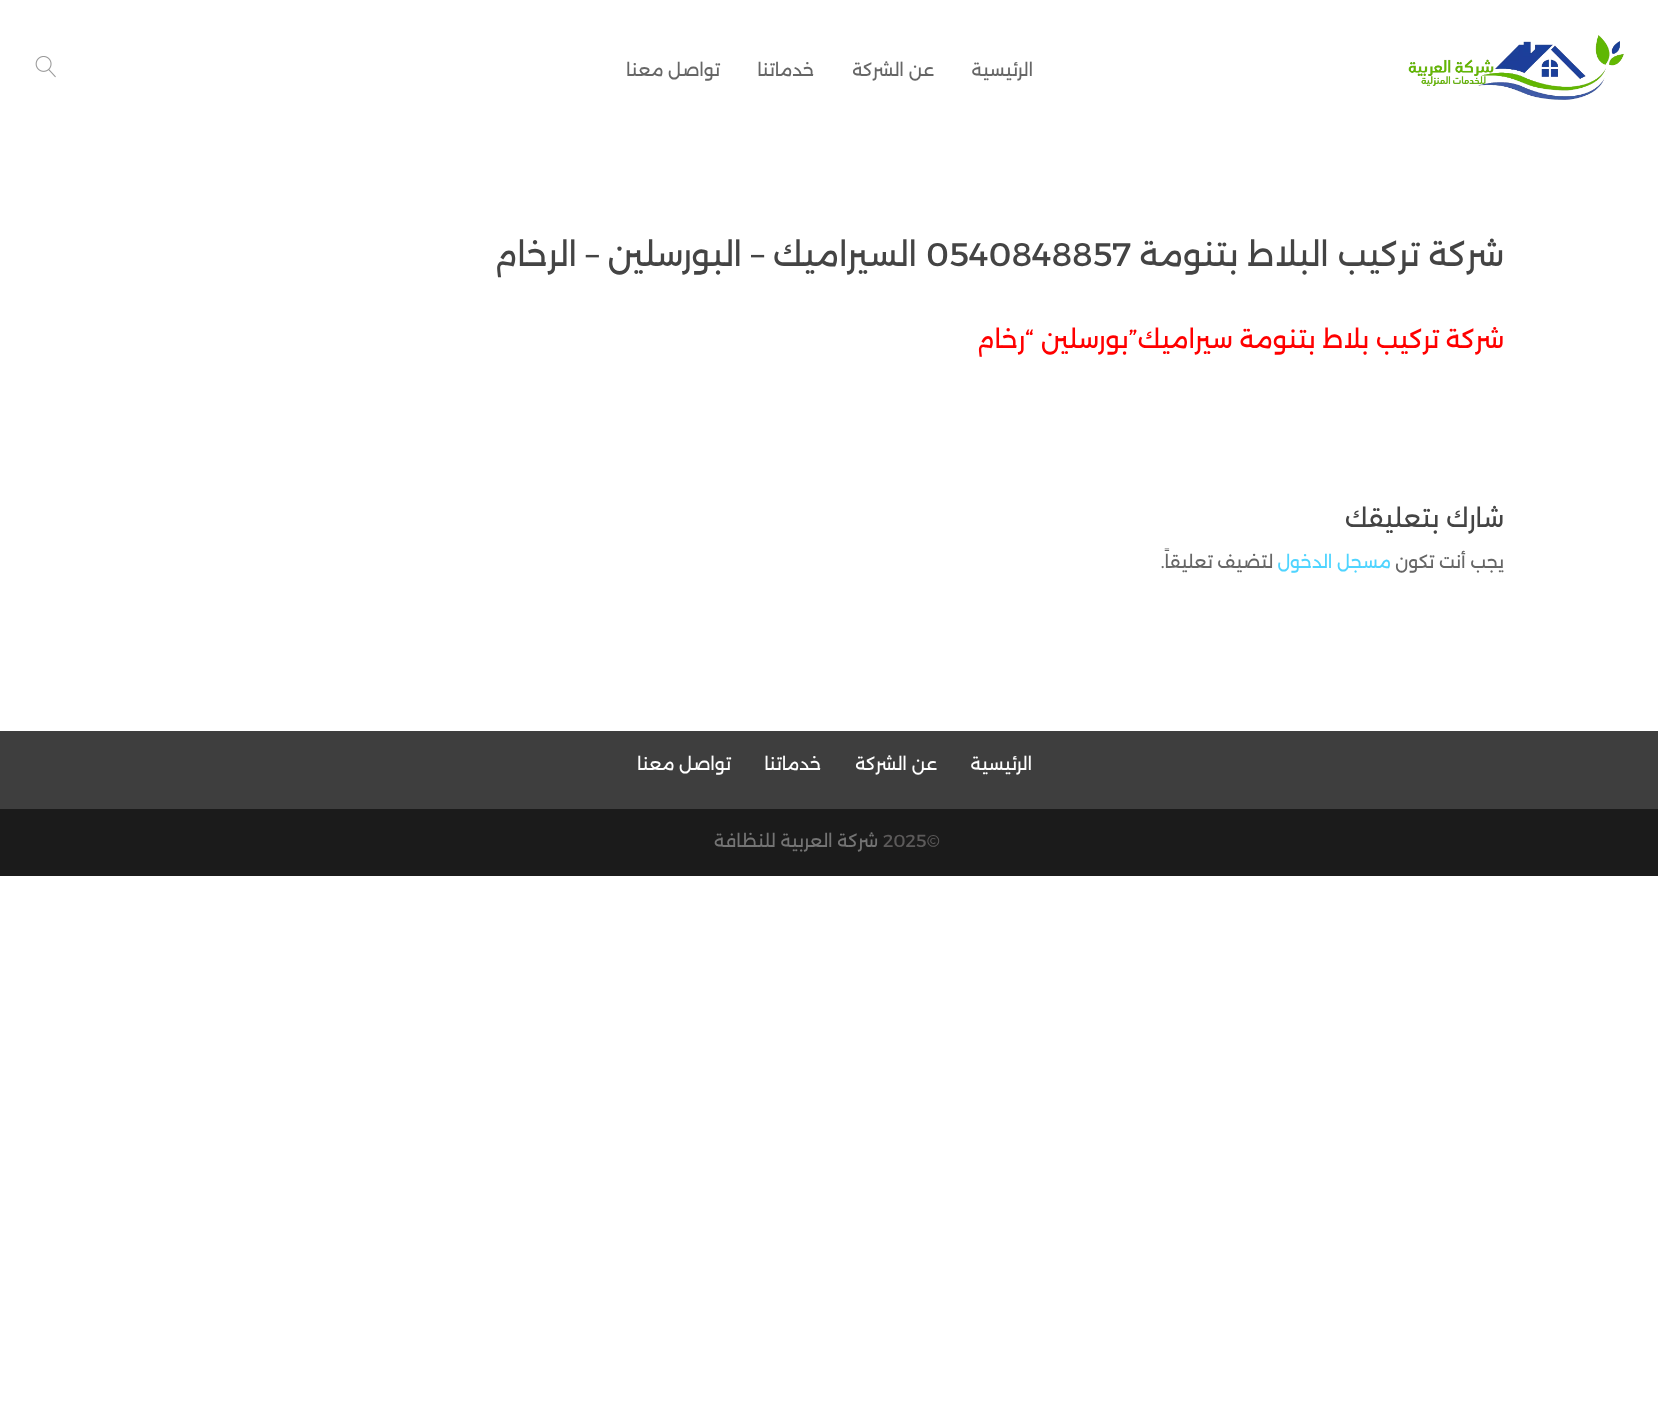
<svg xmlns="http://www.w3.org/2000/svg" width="1658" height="1419">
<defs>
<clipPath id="clip1"><rect x="853" width="81" height="141"/></clipPath>
</defs>
<rect width="100%" height="100%" fill="#fff"/>
<image x="1408" y="35" width="216" height="65" href="media/1.png"/>
<text x="1033" y="76" style="font-family:Alexandria;font-size:17.5px;direction:rtl;fill:#666">الرئيسية</text>
<g clip-path="url(#clip1)">
<text x="934" y="76" style="font-family:Alexandria;font-size:17.5px;direction:rtl;fill:#666">عن الشركة</text>
</g>
<text x="814" y="76" style="font-family:Alexandria;font-size:17.5px;direction:rtl;fill:#666">خدماتنا</text>
<text x="720" y="76" style="font-family:Alexandria;font-size:17.5px;direction:rtl;fill:#666">تواصل معنا</text>
<image x="35" y="56" width="21" height="22" href="media/2.png"/>
<text x="1504" y="266" style="font-family:Alexandria;font-size:32.5px;direction:rtl;fill:#444">شركة تركيب البلاط بتنومة</text>
<text x="926" y="266" style="font-family:Alexandria;font-size:32.5px;fill:#444">0540848857</text>
<text x="917" y="266" style="font-family:Alexandria;font-size:32.5px;direction:rtl;fill:#444">السيراميك – البورسلين – الرخام</text>
<text x="1504" y="348" style="font-family:Alexandria;font-size:25px;direction:rtl;fill:#f00">شركة تركيب بلاط بتنومة سيراميك”بورسلين “رخام</text>
<text x="1504" y="527" style="font-family:Alexandria;font-size:25px;direction:rtl;fill:#444">شارك بتعليقك</text>
<text x="1504" y="568" style="font-family:Alexandria;font-size:17.5px;direction:rtl;fill:#666">يجب أنت تكون</text>
<text x="1391" y="568" style="font-family:Alexandria;font-size:17.5px;direction:rtl;fill:#4fd4ff">مسجل الدخول</text>
<text x="1273" y="568" style="font-family:Alexandria;font-size:17.5px;direction:rtl;fill:#666">لتضيف تعليقاً.</text>
<rect y="731" width="1658" height="78" fill="#3e3e3e"/>
<text x="1032" y="770" style="font-family:Alexandria;font-size:17.5px;direction:rtl;fill:#fff">الرئيسية</text>
<text x="937" y="770" style="font-family:Alexandria;font-size:17.5px;direction:rtl;fill:#fff">عن الشركة</text>
<text x="821" y="770" style="font-family:Alexandria;font-size:17.5px;direction:rtl;fill:#fff">خدماتنا</text>
<text x="731" y="770" style="font-family:Alexandria;font-size:17.5px;direction:rtl;fill:#fff">تواصل معنا</text>
<rect y="809" width="1658" height="67" fill="#1b1b1b"/>
<text x="883" y="847" style="font-family:Alexandria;font-size:17.5px;fill:#5c5a5a">2025©</text>
<text x="878" y="847" style="font-family:Alexandria;font-size:17.5px;direction:rtl;fill:#747474">شركة العربية للنظافة</text>
</svg>
